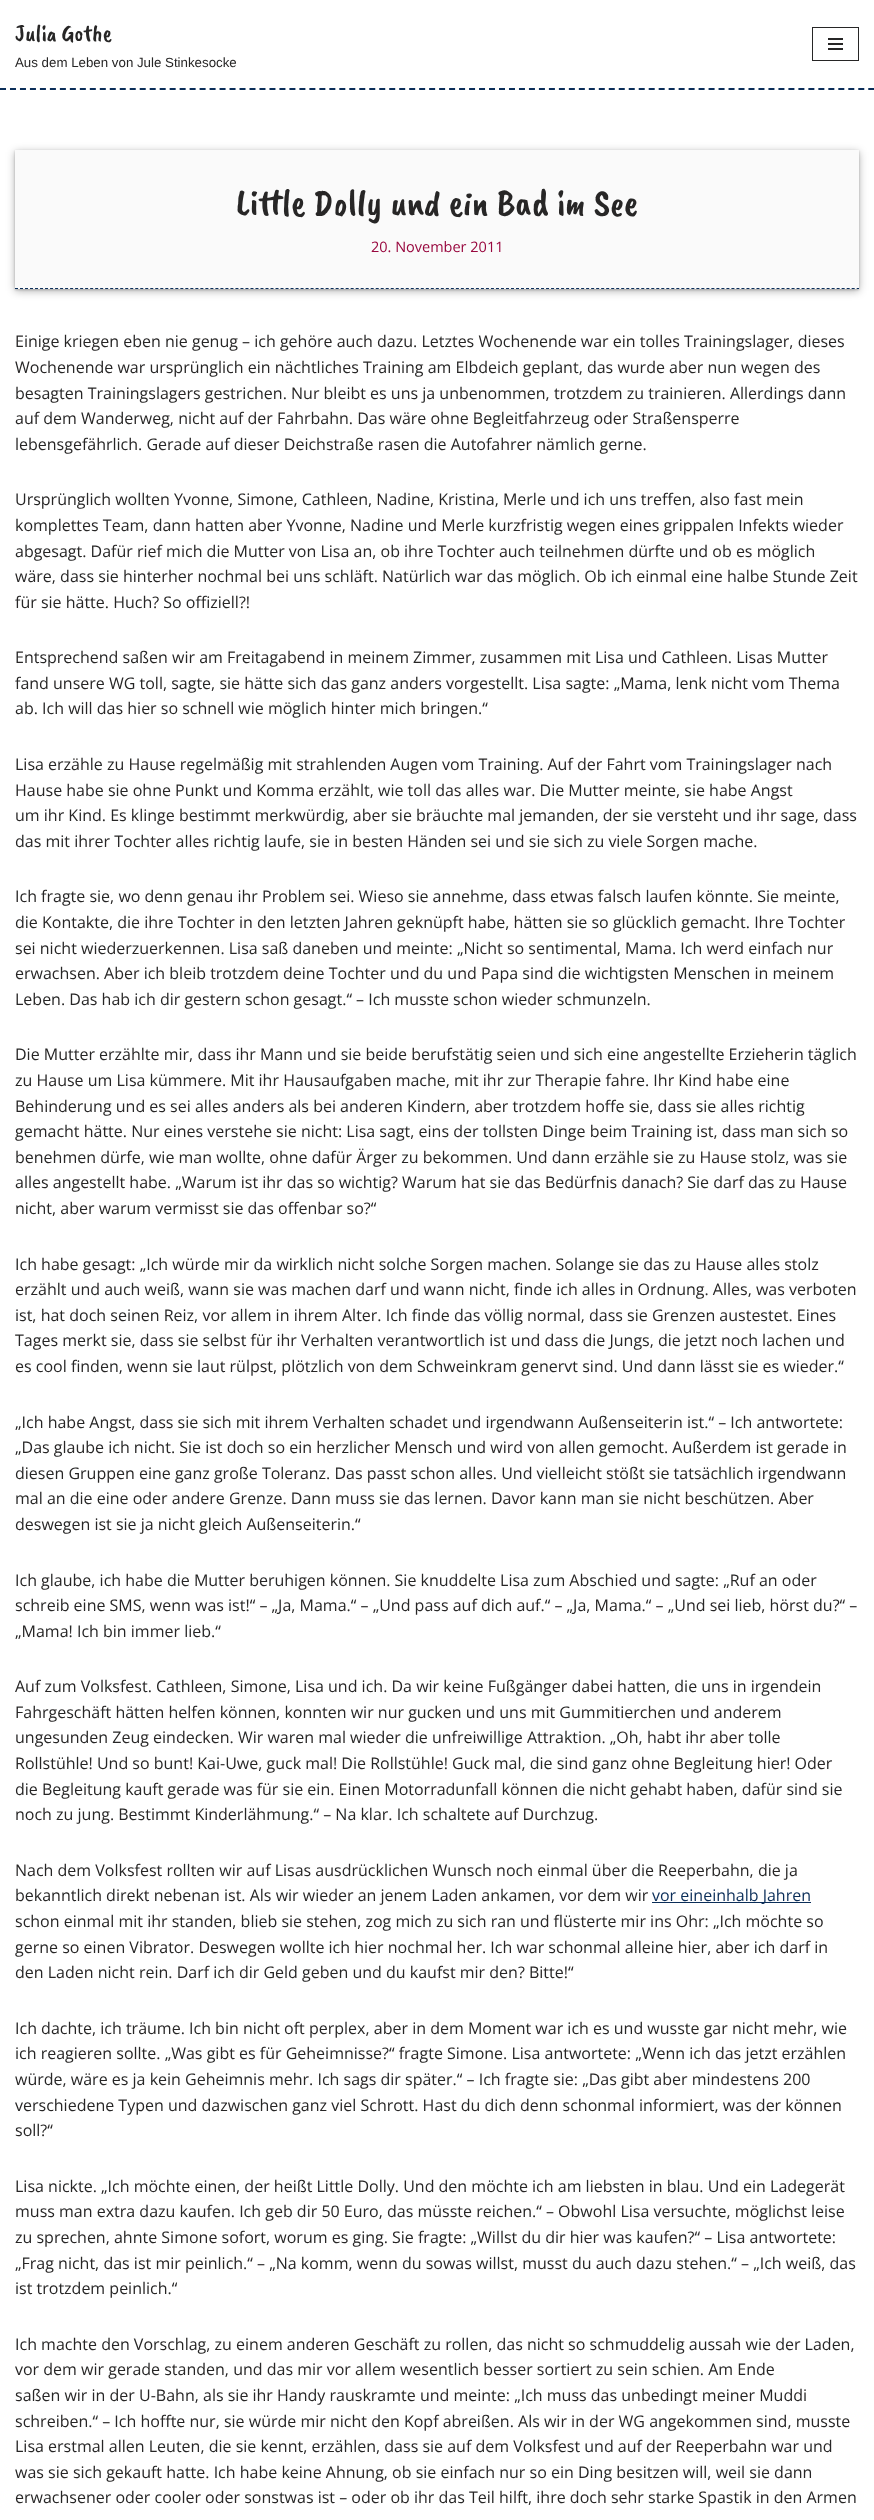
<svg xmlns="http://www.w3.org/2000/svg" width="874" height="2520">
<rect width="100%" height="100%" fill="#fff"/>
<path d="M0 89h874" fill="none" stroke="#0b2e59" stroke-width="2" stroke-dasharray="6 3.98"/>
<text x="15" y="41" style="font-family:Caveat Brush;font-size:24px;fill:#272626">Julia Gothe</text>
<text x="15" y="67" style="font-family:Liberation Sans;font-size:13.3px;fill:#272626">Aus dem Leben von Jule Stinkesocke</text>
<rect x="812.5" y="27.5" width="46" height="33" fill="none" stroke="#272626"/>
<rect x="828" y="38" width="15" height="2" fill="#272626"/>
<rect x="828" y="43" width="15" height="2" fill="#272626"/>
<rect x="828" y="48" width="15" height="2" fill="#272626"/>
<rect x="15" y="151" width="844" height="139" fill="#00000033" filter="blur(1px)"/>
<rect x="15" y="152" width="844" height="139" fill="#0000004d" filter="blur(4px)"/>
<rect x="15" y="150" width="844" height="139" fill="#fafafa"/>
<path d="M15 288.5h844" fill="none" stroke="#0b2e59" stroke-dasharray="3 2.01"/>
<text x="236" y="215" style="font-family:Caveat Brush;font-size:38px;fill:#272626">Little Dolly und ein Bad im See</text>
<text x="371" y="252" style="font-family:Open Sans;font-size:14.5px;fill:#98073e">20. November 2011</text>
<text x="15" y="347" style="font-family:Open Sans;font-size:16px;fill:#272626">Einige kriegen eben nie genug – ich gehöre auch dazu. Letztes Wochenende war ein tolles Trainingslager, dieses</text>
<text x="15" y="373" style="font-family:Open Sans;font-size:16px;fill:#272626">Wochenende war ursprünglich ein nächtliches Training am Elbdeich geplant, das wurde aber nun wegen des</text>
<text x="15" y="399" style="font-family:Open Sans;font-size:16px;fill:#272626">besagten Trainingslagers gestrichen. Nur bleibt es uns ja unbenommen, trotzdem zu trainieren. Allerdings dann</text>
<text x="15" y="424" style="font-family:Open Sans;font-size:16px;fill:#272626">auf dem Wanderweg, nicht auf der Fahrbahn. Das wäre ohne Begleitfahrzeug oder Straßensperre</text>
<text x="15" y="450" style="font-family:Open Sans;font-size:16px;fill:#272626">lebensgefährlich. Gerade auf dieser Deichstraße rasen die Autofahrer nämlich gerne.</text>
<text x="15" y="505" style="font-family:Open Sans;font-size:16px;fill:#272626">Ursprünglich wollten Yvonne, Simone, Cathleen, Nadine, Kristina, Merle und ich uns treffen, also fast mein</text>
<text x="15" y="531" style="font-family:Open Sans;font-size:16px;fill:#272626">komplettes Team, dann hatten aber Yvonne, Nadine und Merle kurzfristig wegen eines grippalen Infekts wieder</text>
<text x="15" y="557" style="font-family:Open Sans;font-size:16px;fill:#272626">abgesagt. Dafür rief mich die Mutter von Lisa an, ob ihre Tochter auch teilnehmen dürfte und ob es möglich</text>
<text x="15" y="582" style="font-family:Open Sans;font-size:16px;fill:#272626">wäre, dass sie hinterher nochmal bei uns schläft. Natürlich war das möglich. Ob ich einmal eine halbe Stunde Zeit</text>
<text x="15" y="608" style="font-family:Open Sans;font-size:16px;fill:#272626">für sie hätte. Huch? So offiziell?!</text>
<text x="15" y="663" style="font-family:Open Sans;font-size:16px;fill:#272626">Entsprechend saßen wir am Freitagabend in meinem Zimmer, zusammen mit Lisa und Cathleen. Lisas Mutter</text>
<text x="15" y="689" style="font-family:Open Sans;font-size:16px;fill:#272626">fand unsere WG toll, sagte, sie hätte sich das ganz anders vorgestellt. Lisa sagte: „Mama, lenk nicht vom Thema</text>
<text x="15" y="714" style="font-family:Open Sans;font-size:16px;fill:#272626">ab. Ich will das hier so schnell wie möglich hinter mich bringen.“</text>
<text x="15" y="770" style="font-family:Open Sans;font-size:16px;fill:#272626">Lisa erzähle zu Hause regelmäßig mit strahlenden Augen vom Training. Auf der Fahrt vom Trainingslager nach</text>
<text x="15" y="796" style="font-family:Open Sans;font-size:16px;fill:#272626">Hause habe sie ohne Punkt und Komma erzählt, wie toll das alles war. Die Mutter meinte, sie habe Angst</text>
<text x="15" y="821" style="font-family:Open Sans;font-size:16px;fill:#272626">um ihr Kind. Es klinge bestimmt merkwürdig, aber sie bräuchte mal jemanden, der sie versteht und ihr sage, dass</text>
<text x="15" y="847" style="font-family:Open Sans;font-size:16px;fill:#272626">das mit ihrer Tochter alles richtig laufe, sie in besten Händen sei und sie sich zu viele Sorgen mache.</text>
<text x="15" y="902" style="font-family:Open Sans;font-size:16px;fill:#272626">Ich fragte sie, wo denn genau ihr Problem sei. Wieso sie annehme, dass etwas falsch laufen könnte. Sie meinte,</text>
<text x="15" y="928" style="font-family:Open Sans;font-size:16px;fill:#272626">die Kontakte, die ihre Tochter in den letzten Jahren geknüpft habe, hätten sie so glücklich gemacht. Ihre Tochter</text>
<text x="15" y="954" style="font-family:Open Sans;font-size:16px;fill:#272626">sei nicht wiederzuerkennen. Lisa saß daneben und meinte: „Nicht so sentimental, Mama. Ich werd einfach nur</text>
<text x="15" y="979" style="font-family:Open Sans;font-size:16px;fill:#272626">erwachsen. Aber ich bleib trotzdem deine Tochter und du und Papa sind die wichtigsten Menschen in meinem</text>
<text x="15" y="1005" style="font-family:Open Sans;font-size:16px;fill:#272626">Leben. Das hab ich dir gestern schon gesagt.“ – Ich musste schon wieder schmunzeln.</text>
<text x="15" y="1060" style="font-family:Open Sans;font-size:16px;fill:#272626">Die Mutter erzählte mir, dass ihr Mann und sie beide berufstätig seien und sich eine angestellte Erzieherin täglich</text>
<text x="15" y="1086" style="font-family:Open Sans;font-size:16px;fill:#272626">zu Hause um Lisa kümmere. Mit ihr Hausaufgaben mache, mit ihr zur Therapie fahre. Ihr Kind habe eine</text>
<text x="15" y="1112" style="font-family:Open Sans;font-size:16px;fill:#272626">Behinderung und es sei alles anders als bei anderen Kindern, aber trotzdem hoffe sie, dass sie alles richtig</text>
<text x="15" y="1137" style="font-family:Open Sans;font-size:16px;fill:#272626">gemacht hätte. Nur eines verstehe sie nicht: Lisa sagt, eins der tollsten Dinge beim Training ist, dass man sich so</text>
<text x="15" y="1163" style="font-family:Open Sans;font-size:16px;fill:#272626">benehmen dürfe, wie man wollte, ohne dafür Ärger zu bekommen. Und dann erzähle sie zu Hause stolz, was sie</text>
<text x="15" y="1188" style="font-family:Open Sans;font-size:16px;fill:#272626">alles angestellt habe. „Warum ist ihr das so wichtig? Warum hat sie das Bedürfnis danach? Sie darf das zu Hause</text>
<text x="15" y="1214" style="font-family:Open Sans;font-size:16px;fill:#272626">nicht, aber warum vermisst sie das offenbar so?“</text>
<text x="15" y="1270" style="font-family:Open Sans;font-size:16px;fill:#272626">Ich habe gesagt: „Ich würde mir da wirklich nicht solche Sorgen machen. Solange sie das zu Hause alles stolz</text>
<text x="15" y="1295" style="font-family:Open Sans;font-size:16px;fill:#272626">erzählt und auch weiß, wann sie was machen darf und wann nicht, finde ich alles in Ordnung. Alles, was verboten</text>
<text x="15" y="1321" style="font-family:Open Sans;font-size:16px;fill:#272626">ist, hat doch seinen Reiz, vor allem in ihrem Alter. Ich finde das völlig normal, dass sie Grenzen austestet. Eines</text>
<text x="15" y="1346" style="font-family:Open Sans;font-size:16px;fill:#272626">Tages merkt sie, dass sie selbst für ihr Verhalten verantwortlich ist und dass die Jungs, die jetzt noch lachen und</text>
<text x="15" y="1372" style="font-family:Open Sans;font-size:16px;fill:#272626">es cool finden, wenn sie laut rülpst, plötzlich von dem Schweinkram genervt sind. Und dann lässt sie es wieder.“</text>
<text x="15" y="1428" style="font-family:Open Sans;font-size:16px;fill:#272626">„Ich habe Angst, dass sie sich mit ihrem Verhalten schadet und irgendwann Außenseiterin ist.“ – Ich antwortete:</text>
<text x="15" y="1453" style="font-family:Open Sans;font-size:16px;fill:#272626">„Das glaube ich nicht. Sie ist doch so ein herzlicher Mensch und wird von allen gemocht. Außerdem ist gerade in</text>
<text x="15" y="1479" style="font-family:Open Sans;font-size:16px;fill:#272626">diesen Gruppen eine ganz große Toleranz. Das passt schon alles. Und vielleicht stößt sie tatsächlich irgendwann</text>
<text x="15" y="1504" style="font-family:Open Sans;font-size:16px;fill:#272626">mal an die eine oder andere Grenze. Dann muss sie das lernen. Davor kann man sie nicht beschützen. Aber</text>
<text x="15" y="1530" style="font-family:Open Sans;font-size:16px;fill:#272626">deswegen ist sie ja nicht gleich Außenseiterin.“</text>
<text x="15" y="1586" style="font-family:Open Sans;font-size:16px;fill:#272626">Ich glaube, ich habe die Mutter beruhigen können. Sie knuddelte Lisa zum Abschied und sagte: „Ruf an oder</text>
<text x="15" y="1611" style="font-family:Open Sans;font-size:16px;fill:#272626">schreib eine SMS, wenn was ist!“ – „Ja, Mama.“ – „Und pass auf dich auf.“ – „Ja, Mama.“ – „Und sei lieb, hörst du?“ –</text>
<text x="15" y="1637" style="font-family:Open Sans;font-size:16px;fill:#272626">„Mama! Ich bin immer lieb.“</text>
<text x="15" y="1692" style="font-family:Open Sans;font-size:16px;fill:#272626">Auf zum Volksfest. Cathleen, Simone, Lisa und ich. Da wir keine Fußgänger dabei hatten, die uns in irgendein</text>
<text x="15" y="1718" style="font-family:Open Sans;font-size:16px;fill:#272626">Fahrgeschäft hätten helfen können, konnten wir nur gucken und uns mit Gummitierchen und anderem</text>
<text x="15" y="1743" style="font-family:Open Sans;font-size:16px;fill:#272626">ungesunden Zeug eindecken. Wir waren mal wieder die unfreiwillige Attraktion. „Oh, habt ihr aber tolle</text>
<text x="15" y="1769" style="font-family:Open Sans;font-size:16px;fill:#272626">Rollstühle! Und so bunt! Kai-Uwe, guck mal! Die Rollstühle! Guck mal, die sind ganz ohne Begleitung hier! Oder</text>
<text x="15" y="1795" style="font-family:Open Sans;font-size:16px;fill:#272626">die Begleitung kauft gerade was für sie ein. Einen Motorradunfall können die nicht gehabt haben, dafür sind sie</text>
<text x="15" y="1820" style="font-family:Open Sans;font-size:16px;fill:#272626">noch zu jung. Bestimmt Kinderlähmung.“ – Na klar. Ich schaltete auf Durchzug.</text>
<text x="15" y="1876" style="font-family:Open Sans;font-size:16px;fill:#272626">Nach dem Volksfest rollten wir auf Lisas ausdrücklichen Wunsch noch einmal über die Reeperbahn, die ja</text>
<text x="15" y="1901" style="font-family:Open Sans;font-size:16px;fill:#272626">bekanntlich direkt nebenan ist. Als wir wieder an jenem Laden ankamen, vor dem wir</text>
<rect x="652" y="1902" width="159" height="1" fill="#0b2e59"/>
<text x="652" y="1901" style="font-family:Open Sans;font-size:16px;fill:#0b2e59">vor eineinhalb Jahren</text>
<text x="15" y="1927" style="font-family:Open Sans;font-size:16px;fill:#272626">schon einmal mit ihr standen, blieb sie stehen, zog mich zu sich ran und flüsterte mir ins Ohr: „Ich möchte so</text>
<text x="15" y="1953" style="font-family:Open Sans;font-size:16px;fill:#272626">gerne so einen Vibrator. Deswegen wollte ich hier nochmal her. Ich war schonmal alleine hier, aber ich darf in</text>
<text x="15" y="1978" style="font-family:Open Sans;font-size:16px;fill:#272626">den Laden nicht rein. Darf ich dir Geld geben und du kaufst mir den? Bitte!“</text>
<text x="15" y="2034" style="font-family:Open Sans;font-size:16px;fill:#272626">Ich dachte, ich träume. Ich bin nicht oft perplex, aber in dem Moment war ich es und wusste gar nicht mehr, wie</text>
<text x="15" y="2059" style="font-family:Open Sans;font-size:16px;fill:#272626">ich reagieren sollte. „Was gibt es für Geheimnisse?“ fragte Simone. Lisa antwortete: „Wenn ich das jetzt erzählen</text>
<text x="15" y="2085" style="font-family:Open Sans;font-size:16px;fill:#272626">würde, wäre es ja kein Geheimnis mehr. Ich sags dir später.“ – Ich fragte sie: „Das gibt aber mindestens 200</text>
<text x="15" y="2111" style="font-family:Open Sans;font-size:16px;fill:#272626">verschiedene Typen und dazwischen ganz viel Schrott. Hast du dich denn schonmal informiert, was der können</text>
<text x="15" y="2136" style="font-family:Open Sans;font-size:16px;fill:#272626">soll?“</text>
<text x="15" y="2192" style="font-family:Open Sans;font-size:16px;fill:#272626">Lisa nickte. „Ich möchte einen, der heißt Little Dolly. Und den möchte ich am liebsten in blau. Und ein Ladegerät</text>
<text x="15" y="2217" style="font-family:Open Sans;font-size:16px;fill:#272626">muss man extra dazu kaufen. Ich geb dir 50 Euro, das müsste reichen.“ – Obwohl Lisa versuchte, möglichst leise</text>
<text x="15" y="2243" style="font-family:Open Sans;font-size:16px;fill:#272626">zu sprechen, ahnte Simone sofort, worum es ging. Sie fragte: „Willst du dir hier was kaufen?“ – Lisa antwortete:</text>
<text x="15" y="2269" style="font-family:Open Sans;font-size:16px;fill:#272626">„Frag nicht, das ist mir peinlich.“ – „Na komm, wenn du sowas willst, musst du auch dazu stehen.“ – „Ich weiß, das</text>
<text x="15" y="2294" style="font-family:Open Sans;font-size:16px;fill:#272626">ist trotzdem peinlich.“</text>
<text x="15" y="2350" style="font-family:Open Sans;font-size:16px;fill:#272626">Ich machte den Vorschlag, zu einem anderen Geschäft zu rollen, das nicht so schmuddelig aussah wie der Laden,</text>
<text x="15" y="2375" style="font-family:Open Sans;font-size:16px;fill:#272626">vor dem wir gerade standen, und das mir vor allem wesentlich besser sortiert zu sein schien. Am Ende</text>
<text x="15" y="2401" style="font-family:Open Sans;font-size:16px;fill:#272626">saßen wir in der U-Bahn, als sie ihr Handy rauskramte und meinte: „Ich muss das unbedingt meiner Muddi</text>
<text x="15" y="2427" style="font-family:Open Sans;font-size:16px;fill:#272626">schreiben.“ – Ich hoffte nur, sie würde mir nicht den Kopf abreißen. Als wir in der WG angekommen sind, musste</text>
<text x="15" y="2452" style="font-family:Open Sans;font-size:16px;fill:#272626">Lisa erstmal allen Leuten, die sie kennt, erzählen, dass sie auf dem Volksfest und auf der Reeperbahn war und</text>
<text x="15" y="2478" style="font-family:Open Sans;font-size:16px;fill:#272626">was sie sich gekauft hatte. Ich habe keine Ahnung, ob sie einfach nur so ein Ding besitzen will, weil sie dann</text>
<text x="15" y="2503" style="font-family:Open Sans;font-size:16px;fill:#272626">erwachsener oder cooler oder sonstwas ist – oder ob ihr das Teil hilft, ihre doch sehr starke Spastik in den Armen</text>
</svg>
